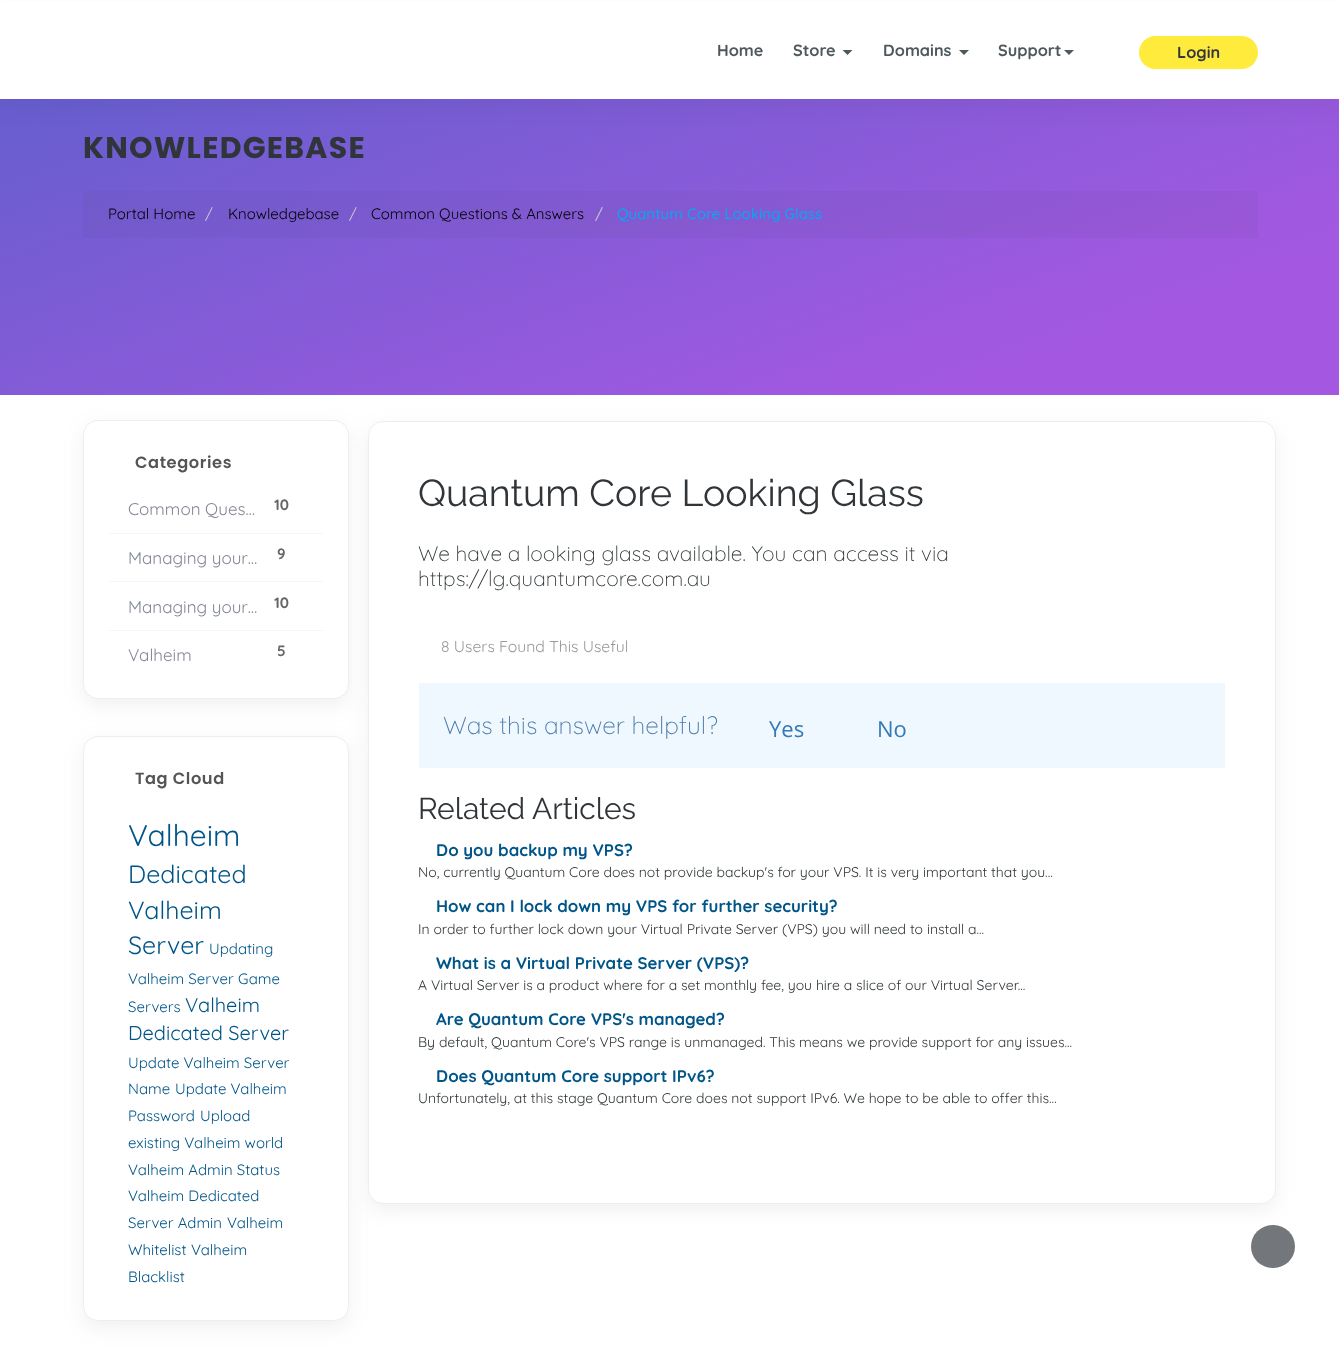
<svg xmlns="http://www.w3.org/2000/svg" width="1339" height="1354">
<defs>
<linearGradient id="g1" gradientUnits="userSpaceOnUse" x1="506" y1="-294" x2="834" y2="584"><stop offset="0" stop-color="#5360ca"/><stop offset="0.85" stop-color="#a458e1"/></linearGradient>
</defs>
<rect width="100%" height="100%" fill="#fff"/>
<rect y="99" width="1339" height="296" fill="url(#g1)"/>
<rect y="9" width="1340" height="99" fill="#0000000a" filter="blur(10.5px)"/>
<rect y="2" width="1339" height="97" fill="#fff"/>
<text x="717" y="56" style="font-family:Quicksand;font-size:16.25px;font-weight:bold;fill:#4e585d">Home</text>
<text x="793" y="56" style="font-family:Quicksand;font-size:16.25px;font-weight:bold;fill:#4e585d">Store</text>
<path d="M842.5 50h10l-5 5z" fill="#4e585d"/>
<text x="883" y="56" style="font-family:Quicksand;font-size:16.25px;font-weight:bold;fill:#4e585d">Domains</text>
<path d="M959 50h10l-5 5z" fill="#4e585d"/>
<text x="998" y="56" style="font-family:Quicksand;font-size:16.25px;font-weight:bold;fill:#4e585d">Support</text>
<path d="M1064 50h10l-5 5z" fill="#4e585d"/>
<rect x="1139" y="36" width="119" height="33" rx="16.5" fill="#ffeb3b"/>
<text x="1177" y="58" style="font-family:Quicksand;font-size:16.25px;font-weight:bold;fill:#363542">Login</text>
<text x="83" y="158" style="font-family:Poppins;font-size:30px;font-weight:bold;letter-spacing:1.25px;fill:#2f3538">KNOWLEDGEBASE</text>
<rect x="83" y="191" width="1175" height="47" fill="#3333330d"/>
<text x="108" y="219" style="font-family:Quicksand;font-size:15px;fill:#000">Portal Home</text>
<text x="205" y="219" style="font-family:Quicksand;font-size:15px;fill:#ccc">/</text>
<text x="228" y="219" style="font-family:Quicksand;font-size:15px;fill:#000">Knowledgebase</text>
<text x="349" y="219" style="font-family:Quicksand;font-size:15px;fill:#ccc">/</text>
<text x="371" y="219" style="font-family:Quicksand;font-size:15px;fill:#000">Common Questions &amp; Answers</text>
<text x="595" y="219" style="font-family:Quicksand;font-size:15px;font-weight:500;fill:#ccc">/</text>
<text x="617" y="219" style="font-family:Quicksand;font-size:15px;font-weight:500;fill:#03a9f4">Quantum Core Looking Glass</text>
<rect x="83" y="426" width="266" height="279" rx="15" fill="#6e6e6e1a" filter="blur(9.5px)"/>
<rect x="83.5" y="420.5" width="265" height="278" rx="14.5" fill="#fff" stroke="#eee"/>
<text x="135" y="468" style="font-family:Poppins;font-size:16.25px;font-weight:600;letter-spacing:0.6px;fill:#555">Categories</text>
<rect x="109" y="533" width="214" height="1" fill="#f5f5f5"/>
<text x="128" y="515" style="font-family:Quicksand;font-size:17px;fill:#838896">Common Ques…</text>
<text x="274" y="510" style="font-family:Quicksand;font-size:15px;font-weight:bold;fill:#666">10</text>
<rect x="109" y="581" width="214" height="1" fill="#f5f5f5"/>
<text x="128" y="564" style="font-family:Quicksand;font-size:17px;fill:#838896">Managing your…</text>
<text x="277" y="559" style="font-family:Quicksand;font-size:15px;font-weight:bold;fill:#666">9</text>
<text x="128" y="613" style="font-family:Quicksand;font-size:17px;fill:#838896">Managing your…</text>
<text x="274" y="608" style="font-family:Quicksand;font-size:15px;font-weight:bold;fill:#666">10</text>
<rect x="109" y="630" width="214" height="1" fill="#f5f5f5"/>
<text x="128" y="661" style="font-family:Quicksand;font-size:17px;fill:#838896">Valheim</text>
<text x="277" y="656" style="font-family:Quicksand;font-size:15px;font-weight:bold;fill:#666">5</text>
<rect x="368" y="428" width="908" height="782" rx="15" fill="#6e6e6e1a" filter="blur(9.5px)"/>
<rect x="368.5" y="421.5" width="907" height="782" rx="14.5" fill="#fff" stroke="#eee"/>
<text x="418" y="506" style="font-family:Raleway;font-size:37.5px;fill:#2f3538">Quantum Core Looking Glass</text>
<text x="418" y="561" style="font-family:Quicksand;font-size:21px;font-weight:300;fill:#2f3538">We have a looking glass available. You can access it via</text>
<text x="418" y="586" style="font-family:Quicksand;font-size:21px;font-weight:300;fill:#2f3538">https://lg.quantumcore.com.au</text>
<text x="441" y="652" style="font-family:Quicksand;font-size:15.75px;fill:#999">8 Users Found This Useful</text>
<rect x="419" y="683" width="806" height="85" fill="#eff7ff"/>
<text x="443" y="734" style="font-family:Quicksand;font-size:24.5px;font-weight:300;fill:#4d7cab">Was this answer helpful?</text>
<text x="769" y="737" style="font-family:Open Sans;font-size:22px;fill:#337ab7">Yes</text>
<text x="877" y="737" style="font-family:Open Sans;font-size:22px;fill:#337ab7">No</text>
<text x="418" y="819" style="font-family:Raleway;font-size:30px;fill:#2f3538">Related Articles</text>
<text x="436" y="856" style="font-family:Quicksand;font-size:16.8px;font-weight:bold;fill:#058">Do you backup my VPS?</text>
<text x="418" y="877" style="font-family:Quicksand;font-size:14px;fill:#2f3538">No, currently Quantum Core does not provide backup's for your VPS. It is very important that you...</text>
<text x="436" y="912" style="font-family:Quicksand;font-size:16.8px;font-weight:bold;fill:#058">How can I lock down my VPS for further security?</text>
<text x="418" y="934" style="font-family:Quicksand;font-size:14px;fill:#2f3538">In order to further lock down your Virtual Private Server (VPS) you will need to install a...</text>
<text x="436" y="969" style="font-family:Quicksand;font-size:16.8px;font-weight:bold;fill:#058">What is a Virtual Private Server (VPS)?</text>
<text x="418" y="990" style="font-family:Quicksand;font-size:14px;fill:#2f3538">A Virtual Server is a product where for a set monthly fee, you hire a slice of our Virtual Server...</text>
<text x="436" y="1025" style="font-family:Quicksand;font-size:16.8px;font-weight:bold;fill:#058">Are Quantum Core VPS's managed?</text>
<text x="418" y="1047" style="font-family:Quicksand;font-size:14px;fill:#2f3538">By default, Quantum Core's VPS range is unmanaged. This means we provide support for any issues...</text>
<text x="436" y="1082" style="font-family:Quicksand;font-size:16.8px;font-weight:bold;fill:#058">Does Quantum Core support IPv6?</text>
<text x="418" y="1103" style="font-family:Quicksand;font-size:14px;fill:#2f3538">Unfortunately, at this stage Quantum Core does not support IPv6. We hope to be able to offer this...</text>
<rect x="83" y="743" width="266" height="585" rx="15" fill="#6e6e6e1a" filter="blur(9.5px)"/>
<rect x="83.5" y="736.5" width="265" height="584" rx="14.5" fill="#fff" stroke="#eee"/>
<text x="135" y="784" style="font-family:Poppins;font-size:16.25px;font-weight:600;letter-spacing:0.6px;fill:#555">Tag Cloud</text>
<text x="128" y="846" style="font-family:Quicksand;font-size:30px;fill:#058">Valheim</text>
<text x="128" y="883" style="font-family:Quicksand;font-size:25px;fill:#058">Dedicated</text>
<text x="128" y="919" style="font-family:Quicksand;font-size:25px;fill:#058">Valheim</text>
<text x="128" y="954" style="font-family:Quicksand;font-size:25px;fill:#058">Server</text>
<text x="209" y="954" style="font-family:Quicksand;font-size:15px;fill:#058">Updating</text>
<text x="128" y="984" style="font-family:Quicksand;font-size:15px;fill:#058">Valheim Server</text>
<text x="238" y="984" style="font-family:Quicksand;font-size:15px;fill:#058">Game</text>
<text x="128" y="1012" style="font-family:Quicksand;font-size:15px;fill:#058">Servers</text>
<text x="185" y="1012" style="font-family:Quicksand;font-size:20px;fill:#058">Valheim</text>
<text x="128" y="1040" style="font-family:Quicksand;font-size:20px;fill:#058">Dedicated Server</text>
<text x="128" y="1068" style="font-family:Quicksand;font-size:15px;fill:#058">Update Valheim Server</text>
<text x="128" y="1094" style="font-family:Quicksand;font-size:15px;fill:#058">Name</text>
<text x="175" y="1094" style="font-family:Quicksand;font-size:15px;fill:#058">Update Valheim</text>
<text x="128" y="1121" style="font-family:Quicksand;font-size:15px;fill:#058">Password</text>
<text x="200" y="1121" style="font-family:Quicksand;font-size:15px;fill:#058">Upload</text>
<text x="128" y="1148" style="font-family:Quicksand;font-size:15px;fill:#058">existing Valheim world</text>
<text x="128" y="1175" style="font-family:Quicksand;font-size:15px;fill:#058">Valheim Admin Status</text>
<text x="128" y="1201" style="font-family:Quicksand;font-size:15px;fill:#058">Valheim Dedicated</text>
<text x="128" y="1228" style="font-family:Quicksand;font-size:15px;fill:#058">Server Admin</text>
<text x="227" y="1228" style="font-family:Quicksand;font-size:15px;fill:#058">Valheim</text>
<text x="128" y="1255" style="font-family:Quicksand;font-size:15px;fill:#058">Whitelist</text>
<text x="191" y="1255" style="font-family:Quicksand;font-size:15px;fill:#058">Valheim</text>
<text x="128" y="1282" style="font-family:Quicksand;font-size:15px;fill:#058">Blacklist</text>
<rect x="1251" y="1225" width="44" height="43" rx="21.5" fill="#73777b"/>
</svg>
